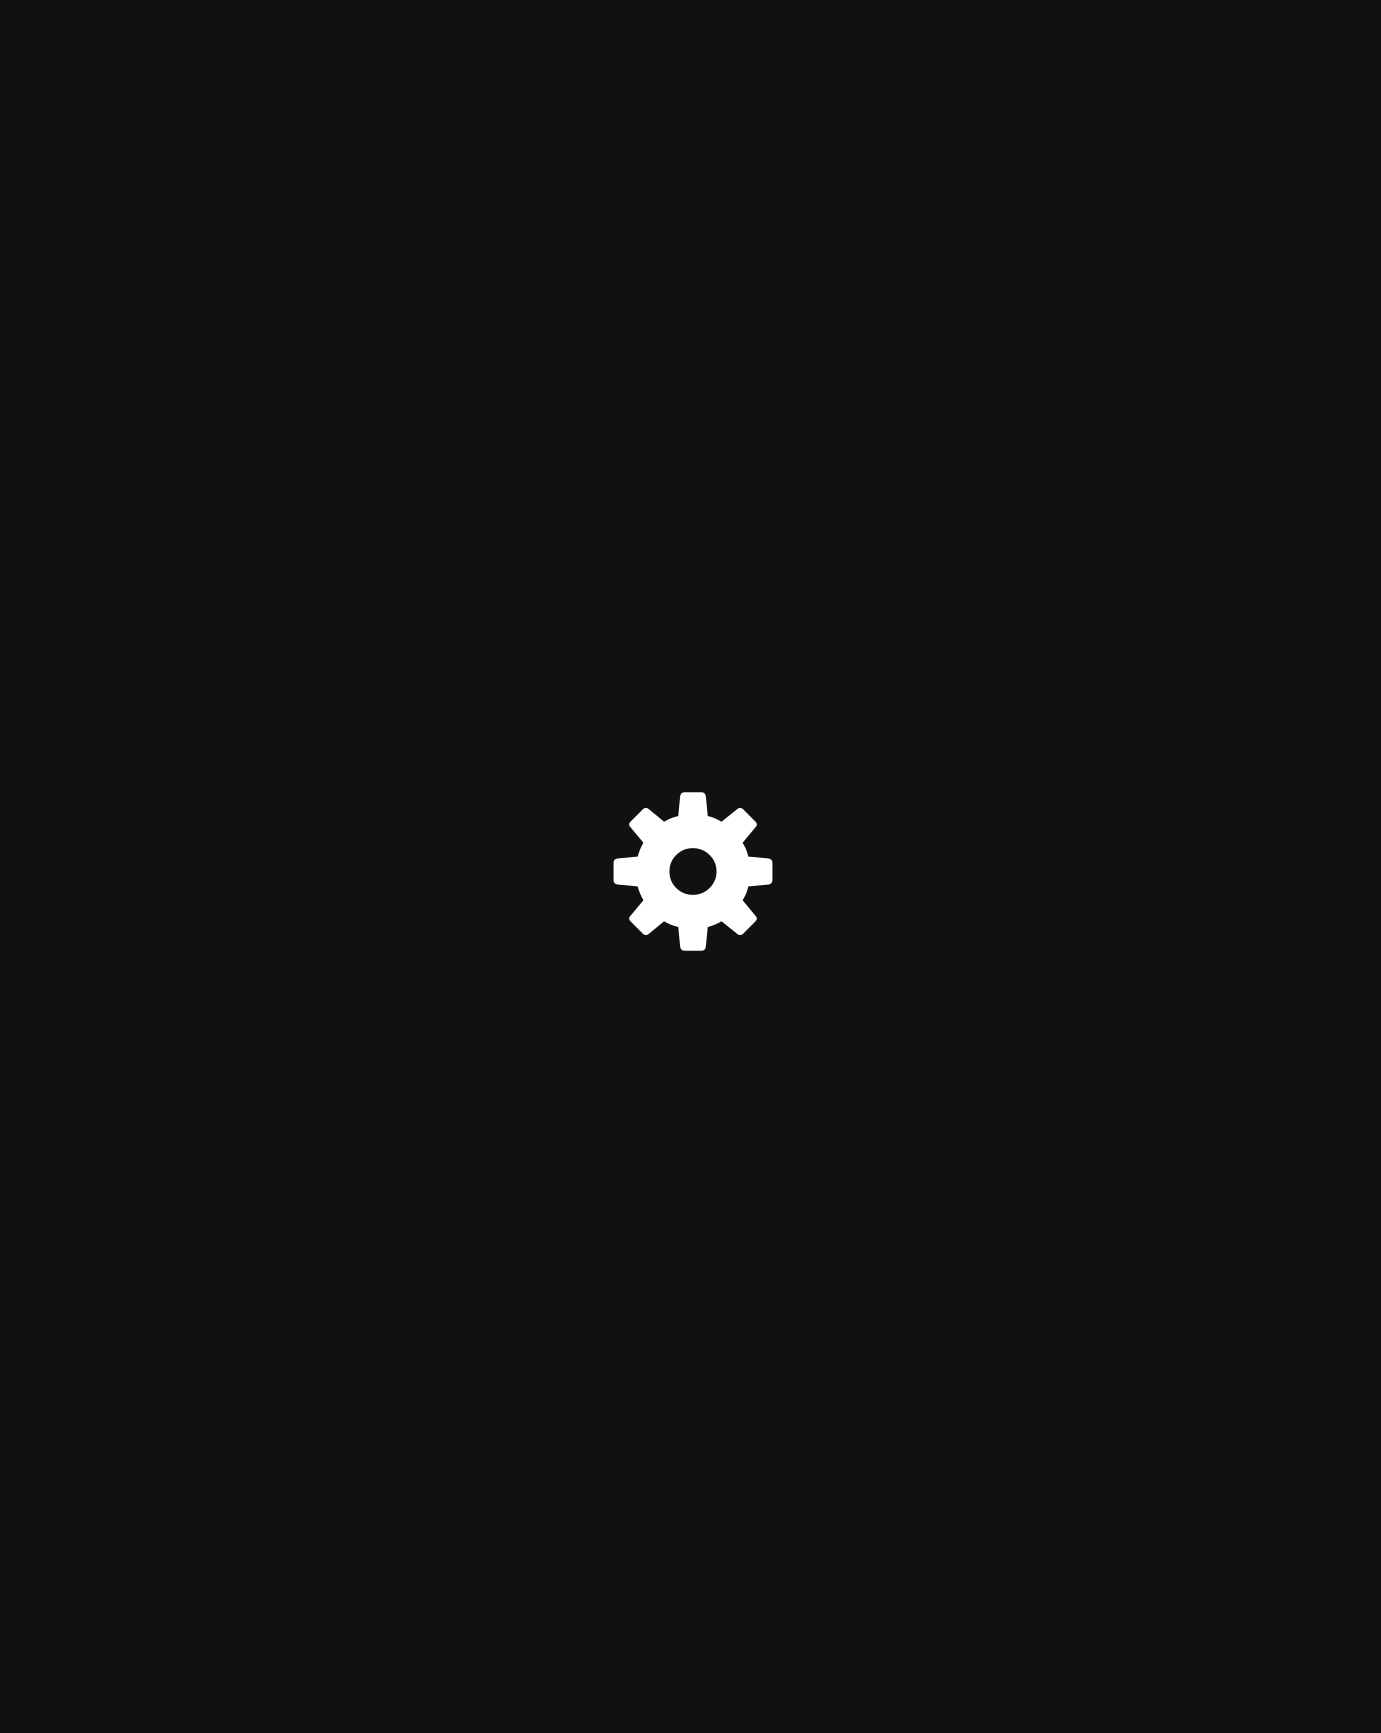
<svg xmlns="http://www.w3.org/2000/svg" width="1381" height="1733">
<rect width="100%" height="100%" fill="#111"/>
<image x="613" y="792" width="160" height="159" href="media/1.png"/>
</svg>
